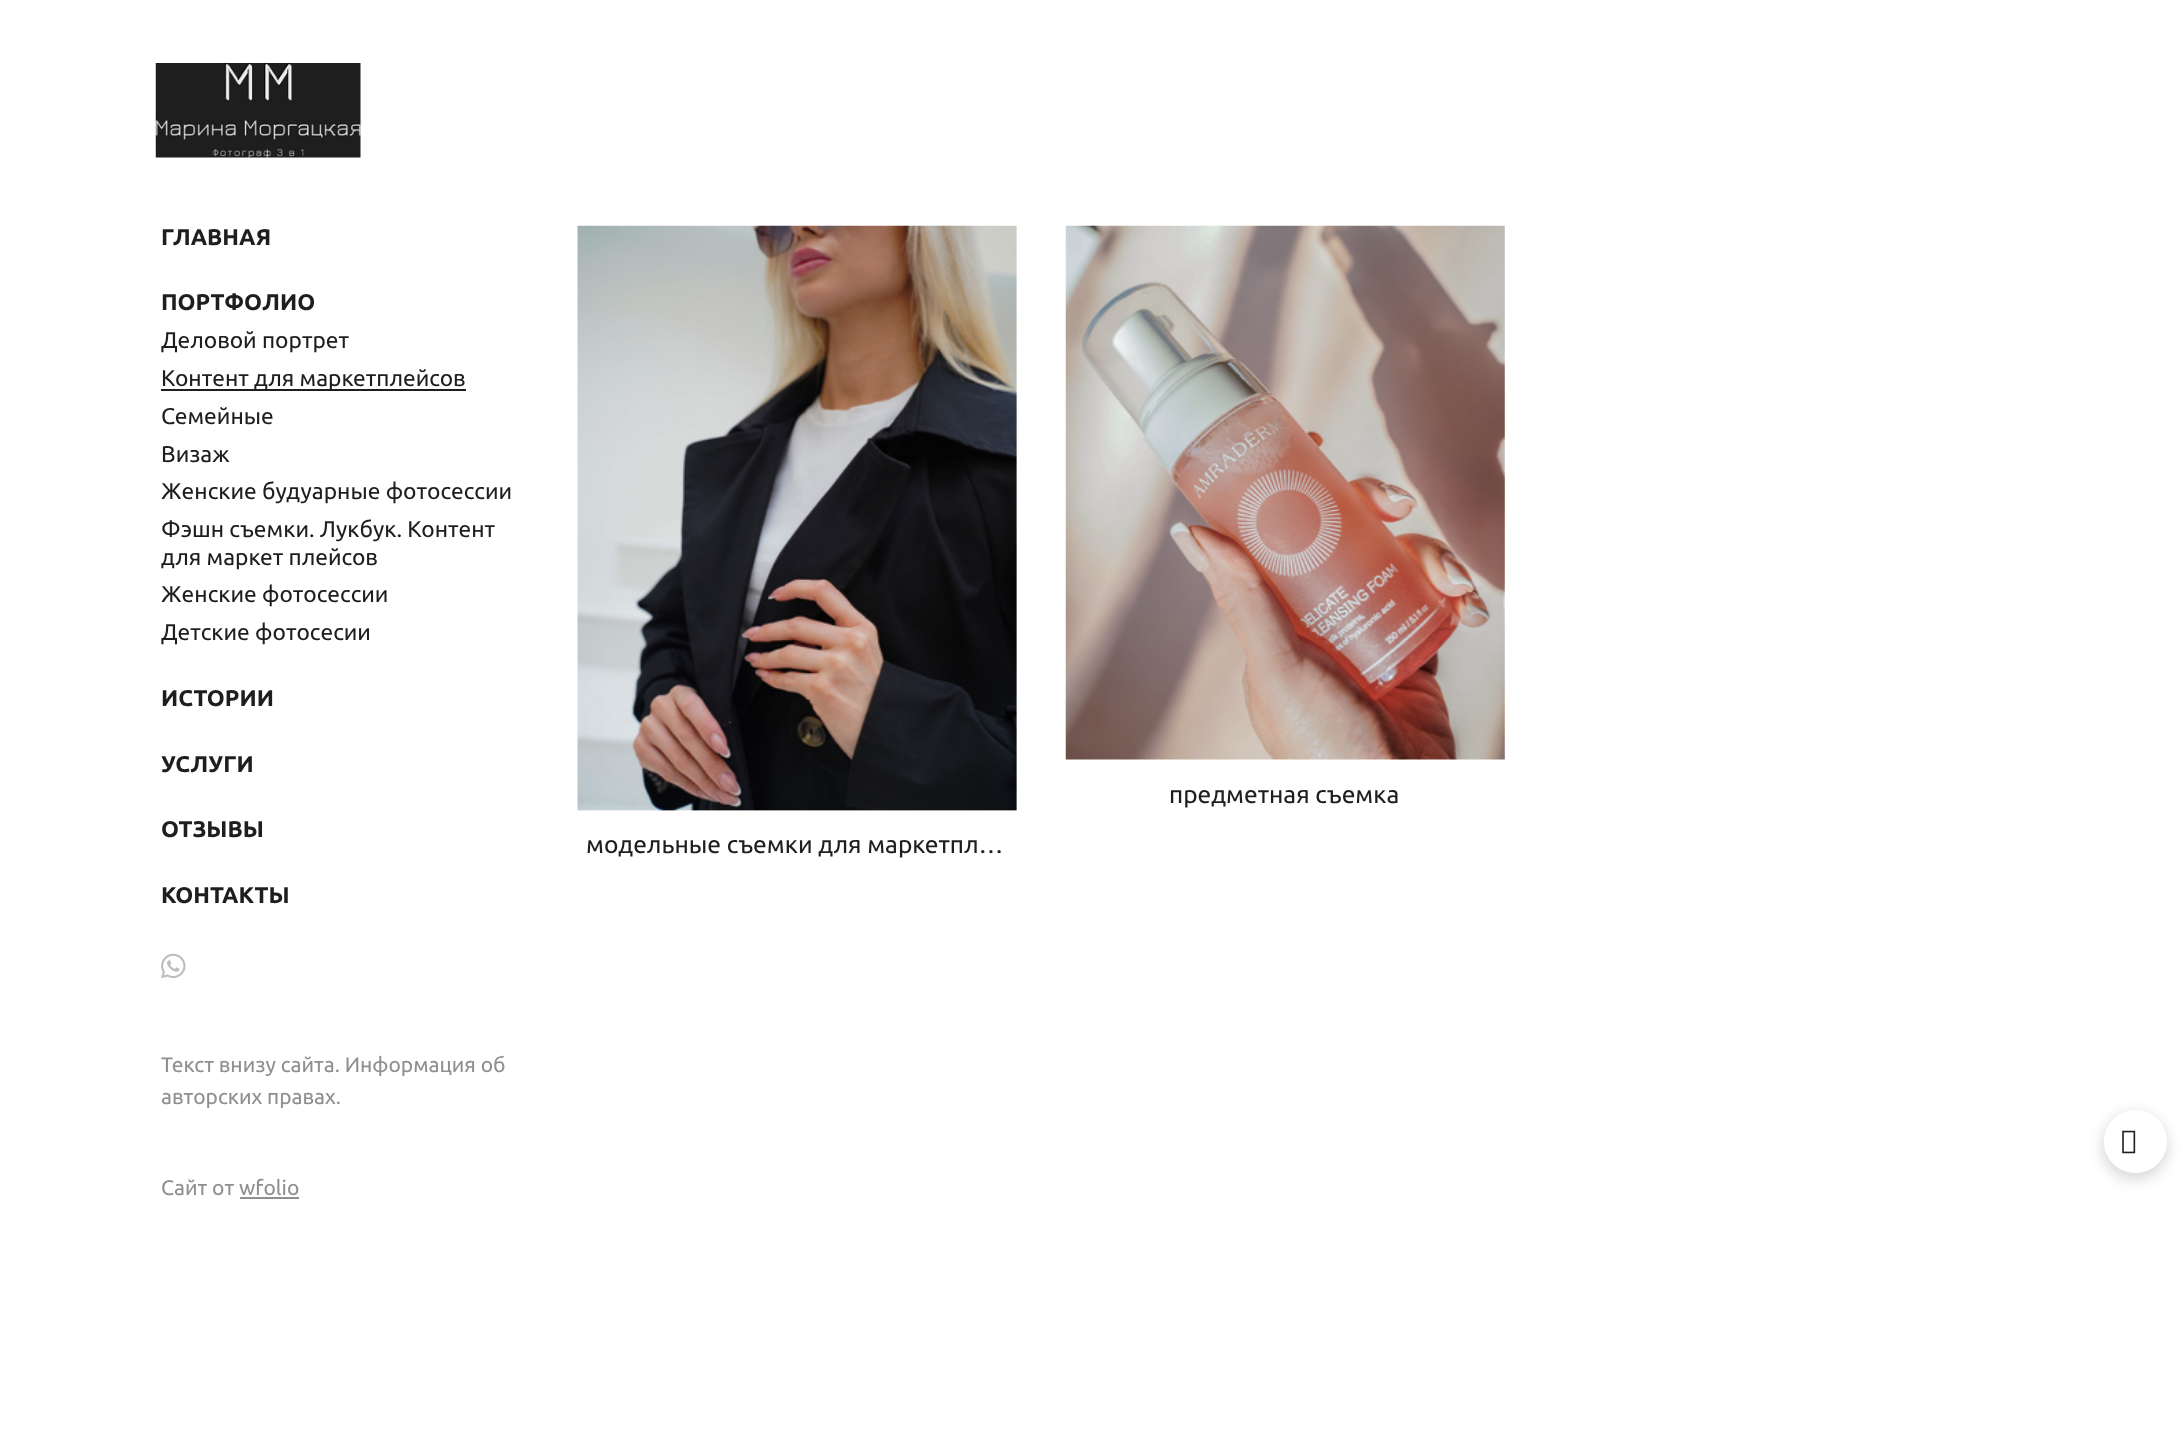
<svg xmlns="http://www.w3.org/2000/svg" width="2183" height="1445">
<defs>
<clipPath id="clip1"><path d="M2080 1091h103v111h-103zm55.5 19c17.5 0 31.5 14 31.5 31.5c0 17.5-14 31.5-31.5 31.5c-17.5 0-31.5-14-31.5-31.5c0-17.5 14-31.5 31.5-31.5z" clip-rule="evenodd"/></clipPath>
</defs>
<rect width="100%" height="100%" fill="#fff"/>
<image x="155" y="63" width="206" height="95" href="media/1.png"/>
<text x="161" y="245" style="font-family:Ubuntu;font-size:22.75px;font-weight:bold;fill:#1e1e1e">ГЛАВНАЯ</text>
<text x="161" y="310" style="font-family:Ubuntu;font-size:22.75px;font-weight:bold;fill:#1e1e1e">ПОРТФОЛИО</text>
<text x="161" y="348" style="font-family:Ubuntu;font-size:22.75px;fill:#1e1e1e">Деловой портрет</text>
<rect x="161" y="389" width="305" height="2" fill="#1e1e1e"/>
<text x="161" y="386" style="font-family:Ubuntu;font-size:22.75px;fill:#1e1e1e">Контент для маркетплейсов</text>
<text x="161" y="424" style="font-family:Ubuntu;font-size:22.75px;fill:#1e1e1e">Семейные</text>
<text x="161" y="462" style="font-family:Ubuntu;font-size:22.75px;fill:#1e1e1e">Визаж</text>
<text x="161" y="499" style="font-family:Ubuntu;font-size:22.75px;fill:#1e1e1e">Женские будуарные фотосессии</text>
<text x="161" y="537" style="font-family:Ubuntu;font-size:22.75px;fill:#1e1e1e">Фэшн съемки. Лукбук. Контент</text>
<text x="161" y="565" style="font-family:Ubuntu;font-size:22.75px;fill:#1e1e1e">для маркет плейсов</text>
<text x="161" y="602" style="font-family:Ubuntu;font-size:22.75px;fill:#1e1e1e">Женские фотосессии</text>
<text x="161" y="640" style="font-family:Ubuntu;font-size:22.75px;fill:#1e1e1e">Детские фотосесии</text>
<text x="161" y="706" style="font-family:Ubuntu;font-size:22.75px;font-weight:bold;fill:#1e1e1e">ИСТОРИИ</text>
<text x="161" y="772" style="font-family:Ubuntu;font-size:22.75px;font-weight:bold;fill:#1e1e1e">УСЛУГИ</text>
<text x="161" y="837" style="font-family:Ubuntu;font-size:22.75px;font-weight:bold;fill:#1e1e1e">ОТЗЫВЫ</text>
<text x="161" y="903" style="font-family:Ubuntu;font-size:22.75px;font-weight:bold;fill:#1e1e1e">КОНТАКТЫ</text>
<image x="161" y="953" width="25" height="26" href="media/2.png"/>
<text x="161" y="1072" style="font-family:Ubuntu;font-size:21px;fill:#8f8f8f">Текст внизу сайта. Информация об</text>
<text x="161" y="1104" style="font-family:Ubuntu;font-size:21px;fill:#8f8f8f">авторских правах.</text>
<text x="161" y="1195" style="font-family:Ubuntu;font-size:21px;fill:#8f8f8f">Сайт от wfolio</text>
<rect x="240" y="1197" width="59" height="2" fill="#8f8f8f"/>
<image x="1065" y="225" width="440" height="535" href="media/3.png"/>
<text x="1169" y="803" style="font-family:Ubuntu;font-size:24.5px;fill:#1e1e1e">предметная съемка</text>
<image x="577" y="225" width="440" height="586" href="media/4.png"/>
<text x="586" y="853" style="font-family:Ubuntu;font-size:24.5px;fill:#1e1e1e">модельные съемки для маркетпл…</text>
<g clip-path="url(#clip1)">
<rect x="2102" y="1113" width="66" height="67" rx="33" fill="#00000026" filter="blur(7px)"/>
</g>
<circle cx="2135.5" cy="1141.5" r="31.5" fill="#ffffff4d"/>
<image x="2122" y="1130" width="14" height="24" href="media/5.png"/>
</svg>
